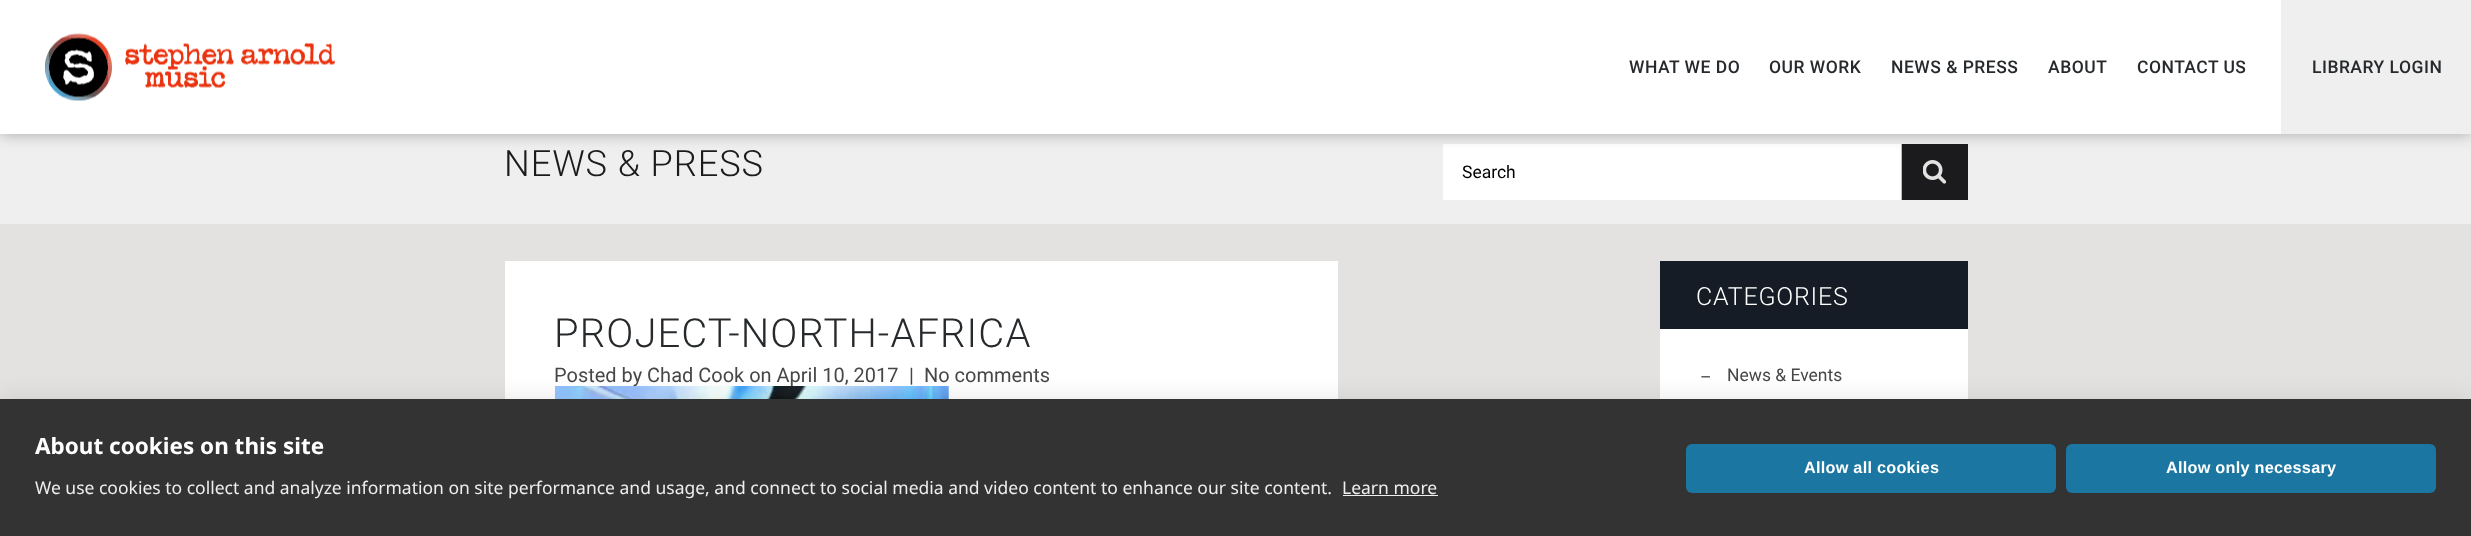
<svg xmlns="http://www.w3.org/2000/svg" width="2471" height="536">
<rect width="100%" height="100%" fill="#efefef"/>
<rect x="1443" y="144" width="458" height="56" fill="#fff"/>
<rect x="1902" y="144" width="66" height="56" fill="#1b1b1d"/>
<rect x="1901" y="144" width="1" height="56" fill="#c4bcb3"/>
<rect width="2471" height="134" fill="#0000004d" filter="blur(7.5px)"/>
<rect width="2281" height="134" fill="#fff"/>
<image x="45" y="33" width="290" height="68" href="media/1.png"/>
<text x="1629" y="73" style="font-family:Roboto;font-size:17.5px;font-weight:500;letter-spacing:0.5px;fill:#272a2c">WHAT WE DO</text>
<text x="1769" y="73" style="font-family:Roboto;font-size:17.5px;font-weight:500;letter-spacing:0.5px;fill:#272a2c">OUR WORK</text>
<text x="1891" y="73" style="font-family:Roboto;font-size:17.5px;font-weight:500;letter-spacing:0.5px;fill:#272a2c">NEWS &amp; PRESS</text>
<text x="2048" y="73" style="font-family:Roboto;font-size:17.5px;font-weight:500;letter-spacing:0.5px;fill:#272a2c">ABOUT</text>
<text x="2137" y="73" style="font-family:Roboto;font-size:17.5px;font-weight:500;letter-spacing:0.5px;fill:#272a2c">CONTACT US</text>
<rect x="2281" width="190" height="134" fill="#efefef"/>
<text x="2312" y="73" style="font-family:Roboto;font-size:17.5px;font-weight:500;letter-spacing:0.5px;fill:#272a2c">LIBRARY LOGIN</text>
<text x="504" y="176" style="font-family:Roboto;font-size:36.25px;font-weight:300;letter-spacing:0.9px;fill:#1b1b1d">NEWS &amp; PRESS</text>
<text x="1462" y="178" style="font-family:Roboto;font-size:17.5px;fill:#000">Search</text>
<image x="1923" y="160" width="23" height="24" href="media/2.png"/>
<rect y="224" width="2471" height="175" fill="#e3e2e1"/>
<rect x="505" y="261" width="833" height="138" fill="#fff"/>
<text x="554" y="347" style="font-family:Roboto;font-size:40px;font-weight:300;letter-spacing:1.1px;fill:#272a2c">PROJECT-NORTH-AFRICA</text>
<text x="554" y="382" style="font-family:Roboto;font-size:20px;fill:#474747">Posted by Chad Cook on April 10, 2017</text>
<text x="909" y="382" style="font-family:Roboto;font-size:20px;fill:#474747">|</text>
<text x="924" y="382" style="font-family:Roboto;font-size:20px;fill:#474747">No comments</text>
<image x="555" y="386" width="394" height="13" href="media/3.png"/>
<rect x="1660" y="329" width="308" height="70" fill="#fff"/>
<rect x="1660" y="261" width="308" height="68" fill="#151c25"/>
<text x="1696" y="305" style="font-family:Roboto;font-size:25px;font-weight:300;letter-spacing:0.75px;fill:#fff">CATEGORIES</text>
<text x="1700" y="383" style="font-family:Roboto;font-size:17.5px;fill:#474747">–</text>
<text x="1727" y="381" style="font-family:Roboto;font-size:17.5px;fill:#474747">News &amp; Events</text>
<rect y="399" width="2471" height="137" fill="#0000001a" filter="blur(12.5px)"/>
<rect y="399" width="2471" height="137" fill="#333"/>
<text x="35" y="454" style="font-family:Noto Sans;font-size:22.5px;font-weight:bold;fill:#fff">About cookies on this site</text>
<text x="35" y="494" style="font-family:Noto Sans;font-size:17.5px;fill:#eee">We use cookies to collect and analyze information on site performance and usage, and connect to social media and video content to enhance our site content.</text>
<text x="1342" y="494" style="font-family:Noto Sans;font-size:17.5px;fill:#eee">Learn more</text>
<rect x="1343" y="495" width="95" height="1" fill="#eee"/>
<rect x="1686" y="444" width="370" height="49" rx="6" fill="#1b77a2"/>
<text x="1804" y="473" style="font-family:Liberation Sans;font-size:16.25px;font-weight:bold;letter-spacing:0.25px;fill:#fff">Allow all cookies</text>
<rect x="2066" y="444" width="370" height="49" rx="6" fill="#1b77a2"/>
<text x="2166" y="473" style="font-family:Liberation Sans;font-size:16.25px;font-weight:bold;letter-spacing:0.25px;fill:#fff">Allow only necessary</text>
</svg>
